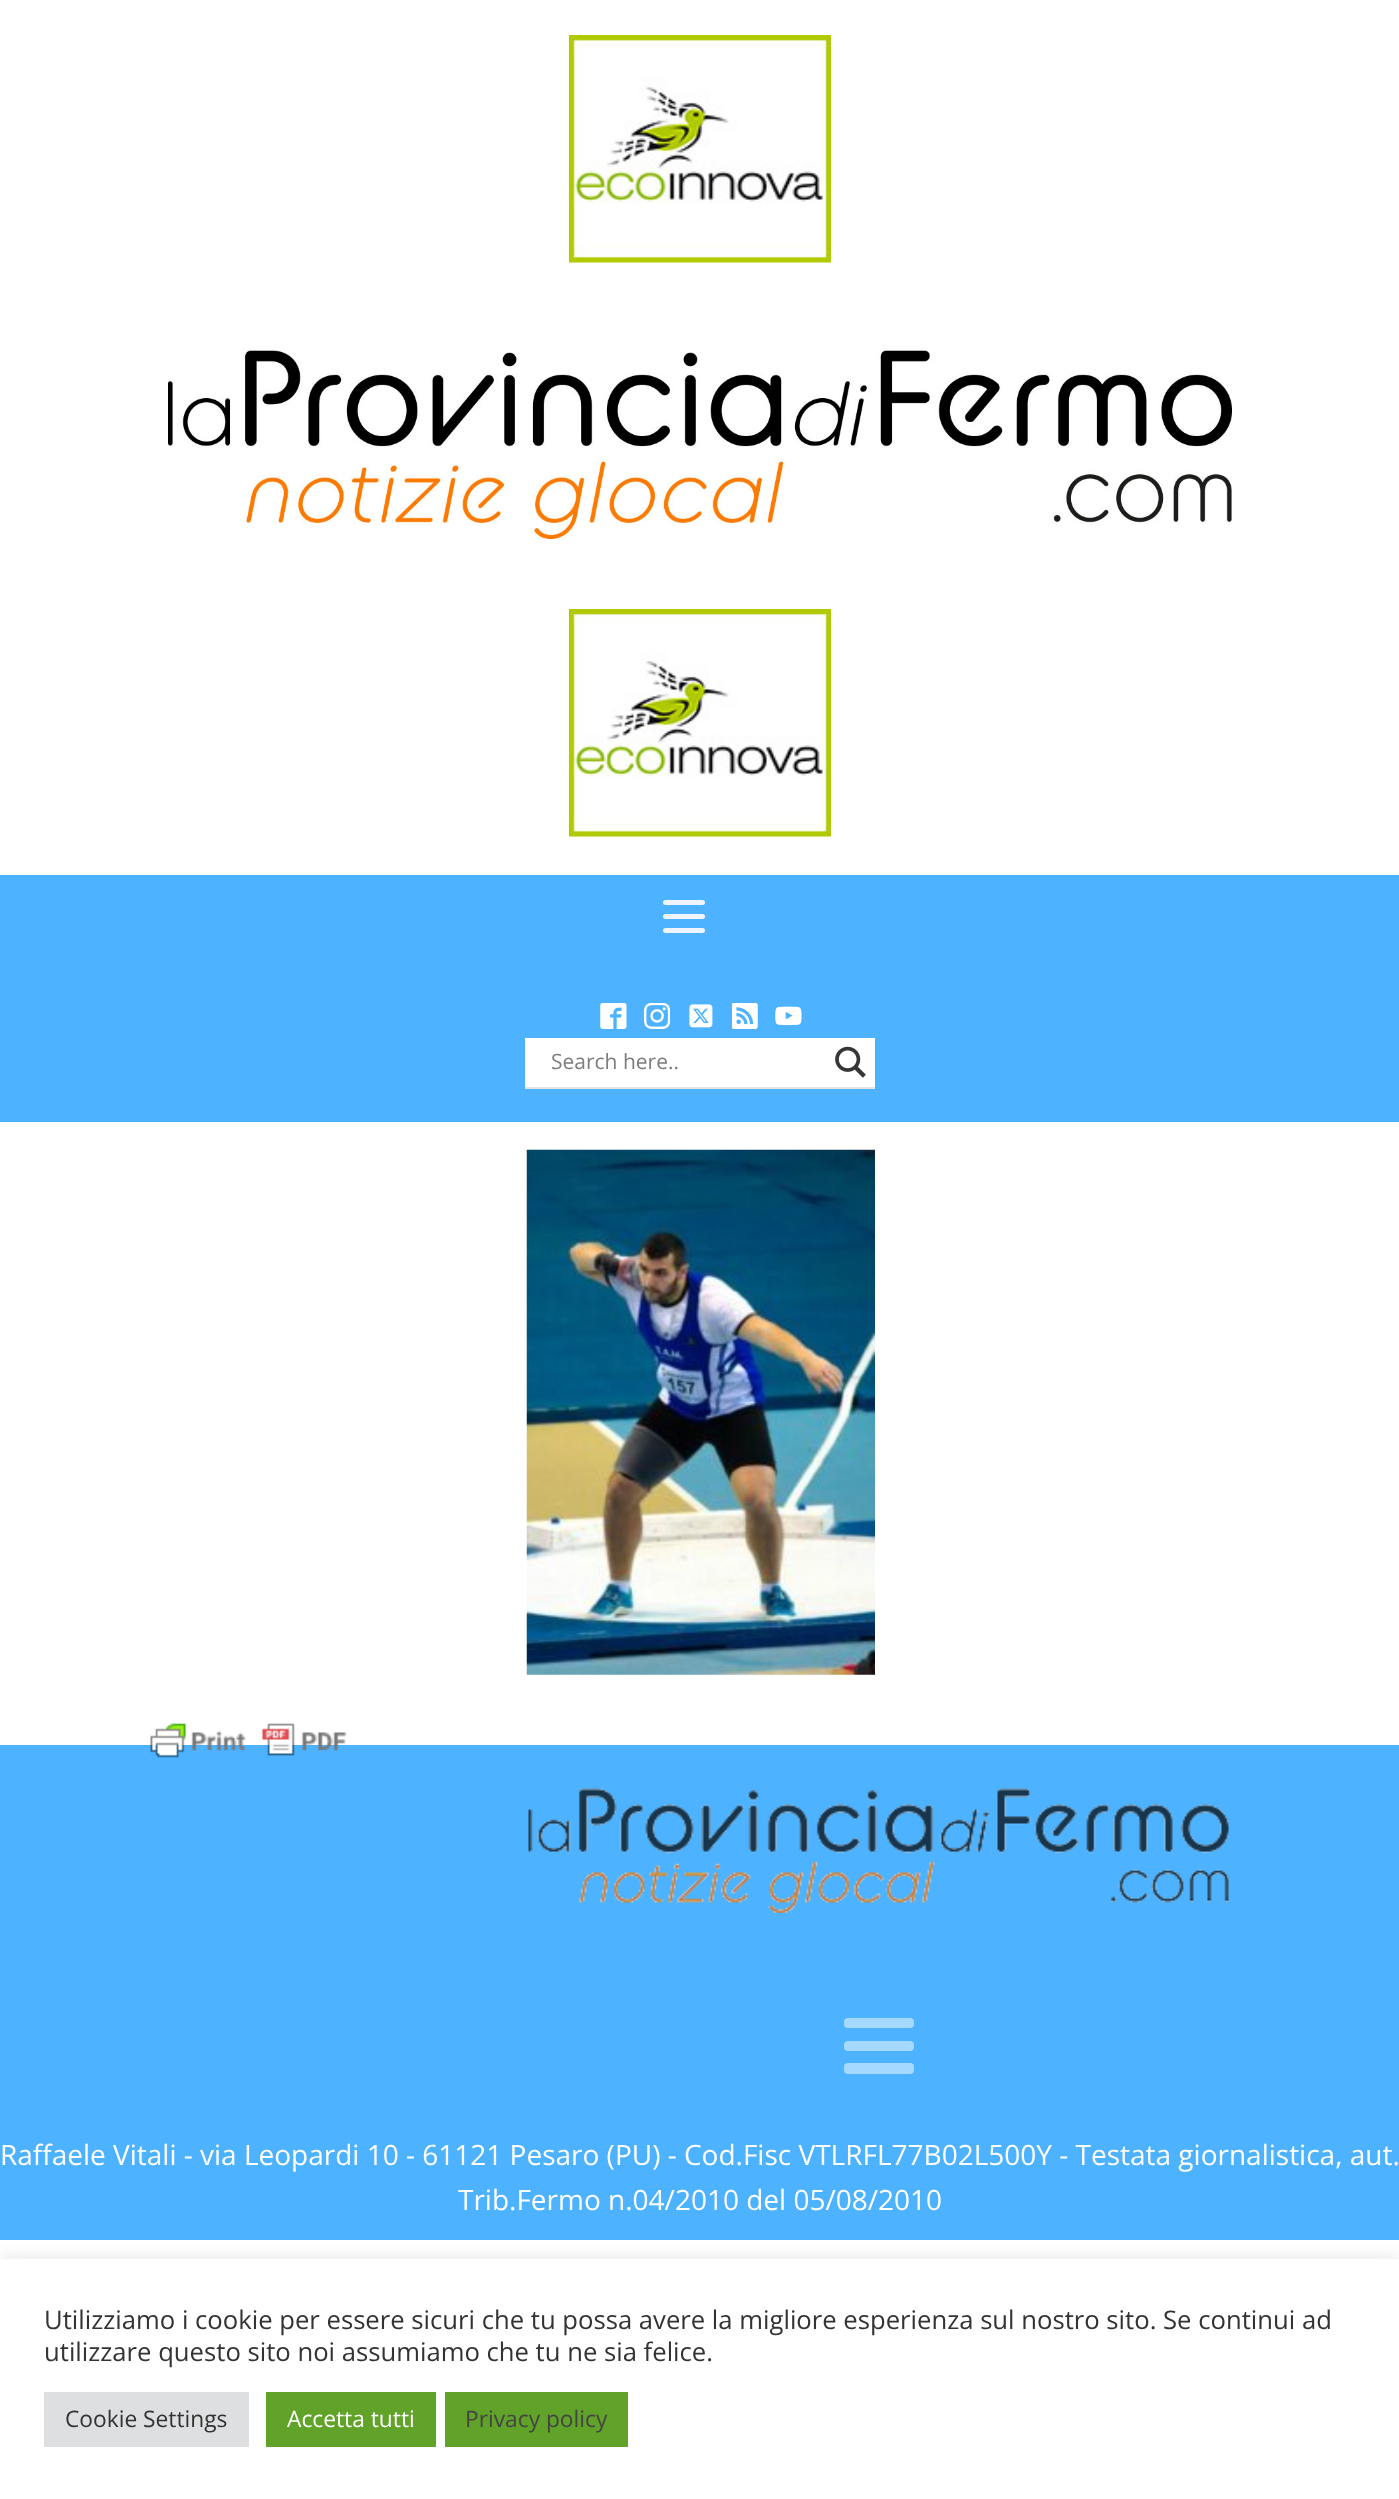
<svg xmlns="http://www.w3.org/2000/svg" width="1399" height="2499">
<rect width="100%" height="100%" fill="#fff"/>
<image x="568" y="35" width="264" height="228" href="media/1.png"/>
<image x="168" y="347" width="1064" height="192" href="media/2.png"/>
<image x="568" y="609" width="264" height="228" href="media/1.png"/>
<rect y="875" width="1399" height="247" fill="#4db2ff"/>
<rect x="663" y="900" width="42" height="5" rx="2.5" fill="#eff4fb"/>
<rect x="663" y="914" width="42" height="5" rx="2.5" fill="#eff4fb"/>
<rect x="663" y="928" width="42" height="5" rx="2.5" fill="#eff4fb"/>
<image x="600" y="1003" width="27" height="26" href="media/3.png"/>
<image x="644" y="1003" width="26" height="26" href="media/4.png"/>
<image x="689" y="1004" width="24" height="24" href="media/5.png"/>
<image x="732" y="1003" width="26" height="26" href="media/6.png"/>
<image x="775" y="1006" width="27" height="20" href="media/7.png"/>
<rect x="525" y="1087" width="350" height="2" fill="#e4e4e4"/>
<rect x="525" y="1038" width="350" height="49" fill="#fff"/>
<text x="551" y="1069" style="font-family:Open Sans;font-size:21px;fill:#7d7d7d">Search here..</text>
<image x="835" y="1046" width="31" height="32" href="media/8.png"/>
<image x="526" y="1149" width="349" height="526" href="media/9.png"/>
<rect y="1745" width="1399" height="495" fill="#4db2ff"/>
<image x="150" y="1723" width="197" height="35" href="media/10.png"/>
<image x="528" y="1788" width="701" height="125" href="media/11.png"/>
<rect x="844" y="2018" width="70" height="10" rx="4" fill="#a6d9ff"/>
<rect x="844" y="2041" width="70" height="10" rx="4" fill="#a6d9ff"/>
<rect x="844" y="2063" width="70" height="11" rx="4" fill="#a6d9ff"/>
<text x="0" y="2165" style="font-family:Open Sans;font-size:28px;fill:#fff">Raffaele Vitali - via Leopardi 10 - 61121 Pesaro (PU) - Cod.Fisc VTLRFL77B02L500Y - Testata giornalistica, aut.</text>
<text x="458" y="2210" style="font-family:Open Sans;font-size:28px;fill:#fff">Trib.Fermo n.04/2010 del 05/08/2010</text>
<rect y="2258" width="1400" height="239" fill="#acabab4d" filter="blur(9px)"/>
<rect y="2259" width="1399" height="240" fill="#fff"/>
<text x="44" y="2329" style="font-family:Open Sans;font-size:25.67px;fill:#333">Utilizziamo i cookie per essere sicuri che tu possa avere la migliore esperienza sul nostro sito. Se continui ad</text>
<text x="44" y="2361" style="font-family:Open Sans;font-size:25.67px;fill:#333">utilizzare questo sito noi assumiamo che tu ne sia felice.</text>
<rect x="44" y="2392" width="205" height="55" fill="#dedfe0"/>
<text x="65" y="2427" style="font-family:Open Sans;font-size:22.75px;fill:#333">Cookie Settings</text>
<rect x="266" y="2392" width="170" height="55" fill="#61a229"/>
<text x="287" y="2427" style="font-family:Open Sans;font-size:22.75px;fill:#fff">Accetta tutti</text>
<rect x="445" y="2392" width="183" height="55" fill="#61a229"/>
<text x="465" y="2427" style="font-family:Open Sans;font-size:22.75px;fill:#444">Privacy policy</text>
</svg>
